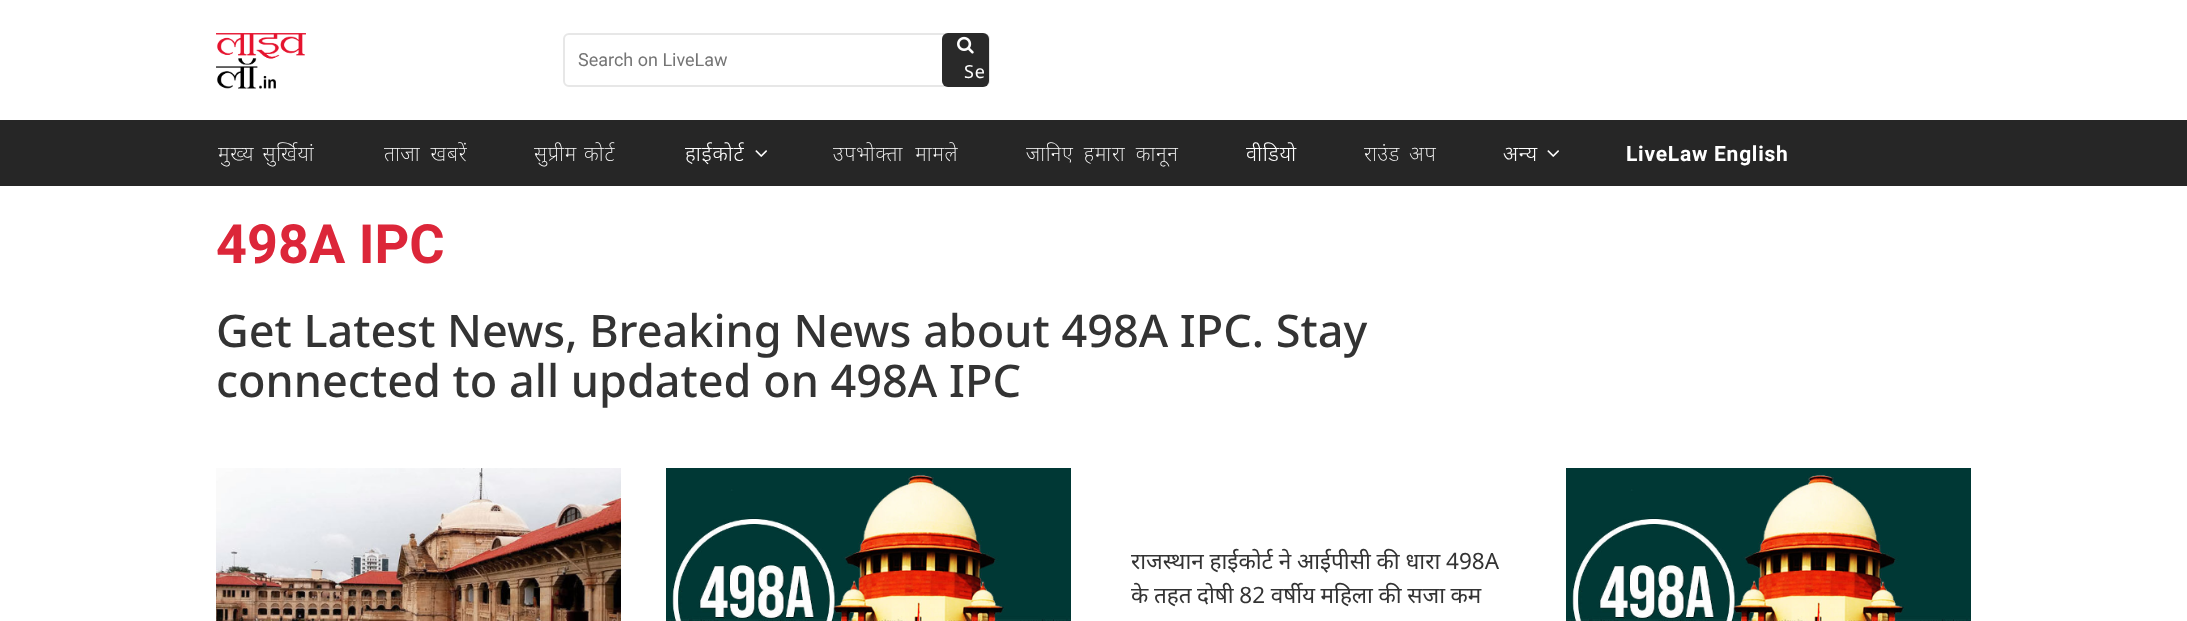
<svg xmlns="http://www.w3.org/2000/svg" width="2187" height="621">
<rect width="100%" height="100%" fill="#fff"/>
<image x="216" y="33" width="90" height="56" href="media/1.png"/>
<rect x="564" y="34" width="425" height="52" rx="5" fill="none" stroke="#e7e7e7" stroke-width="2"/>
<text x="578" y="66" style="font-family:Roboto;font-size:18px;fill:#757575">Search on LiveLaw</text>
<rect x="942" y="33" width="47" height="54" rx="6" fill="#292929"/>
<image x="957" y="36" width="17" height="18" href="media/2.png"/>
<text x="964" y="78" style="font-family:Noto Sans;font-size:18px;letter-spacing:0.75px;fill:#fff">Se</text>
<rect y="120" width="2187" height="66" fill="#262626"/>
<text x="218" y="161" word-spacing="2" style="font-family:Noto Sans;font-size:21px;font-weight:200;letter-spacing:0.75px;fill:#fff">मुख्य सुर्खियां</text>
<text x="384" y="161" word-spacing="4" style="font-family:Noto Sans;font-size:21px;font-weight:200;letter-spacing:0.75px;fill:#fff">ताजा खबरें</text>
<text x="534" y="161" word-spacing="1" style="font-family:Noto Sans;font-size:21px;font-weight:200;letter-spacing:0.75px;fill:#fff">सुप्रीम कोर्ट</text>
<text x="685" y="161" style="font-family:Noto Sans;font-size:21px;font-weight:300;letter-spacing:0.75px;fill:#fff">हाईकोर्ट</text>
<image x="755" y="150" width="12" height="7" href="media/3.png"/>
<text x="833" y="161" word-spacing="6" style="font-family:Noto Sans;font-size:21px;font-weight:200;letter-spacing:0.75px;fill:#fff">उपभोक्ता मामले</text>
<text x="1026" y="161" word-spacing="4" style="font-family:Noto Sans;font-size:21px;font-weight:200;letter-spacing:0.75px;fill:#fff">जानिए हमारा कानून</text>
<text x="1246" y="161" style="font-family:Noto Sans;font-size:21px;font-weight:300;letter-spacing:0.75px;fill:#fff">वीडियो</text>
<text x="1364" y="161" word-spacing="3" style="font-family:Noto Sans;font-size:21px;font-weight:200;letter-spacing:0.75px;fill:#fff">राउंड अप</text>
<text x="1503" y="161" style="font-family:Noto Sans;font-size:21px;font-weight:300;letter-spacing:0.75px;fill:#fff">अन्य</text>
<image x="1547" y="150" width="12" height="7" href="media/3.png"/>
<text x="1626" y="161" style="font-family:Roboto;font-size:21px;font-weight:bold;letter-spacing:0.75px;fill:#fff">LiveLaw English</text>
<text x="216" y="263" style="font-family:Roboto;font-size:54px;font-weight:bold;fill:#dc2639">498A IPC</text>
<text x="216" y="347" style="font-family:Noto Sans;font-size:45px;font-weight:500;fill:#333">Get Latest News, Breaking News about 498A IPC. Stay</text>
<text x="216" y="397" style="font-family:Noto Sans;font-size:45px;font-weight:500;fill:#333">connected to all updated on 498A IPC</text>
<image x="216" y="468" width="405" height="153" href="media/4.png"/>
<image x="666" y="468" width="405" height="153" href="media/5.png"/>
<text x="1131" y="569" style="font-family:Noto Sans;font-size:22.5px;fill:#333">राजस्थान हाईकोर्ट ने आईपीसी की धारा 498A</text>
<text x="1131" y="603" word-spacing="-0.25" style="font-family:Noto Sans;font-size:22.5px;fill:#333">के तहत दोषी 82 वर्षीय महिला की सजा कम</text>
<image x="1566" y="468" width="405" height="153" href="media/5.png"/>
</svg>
